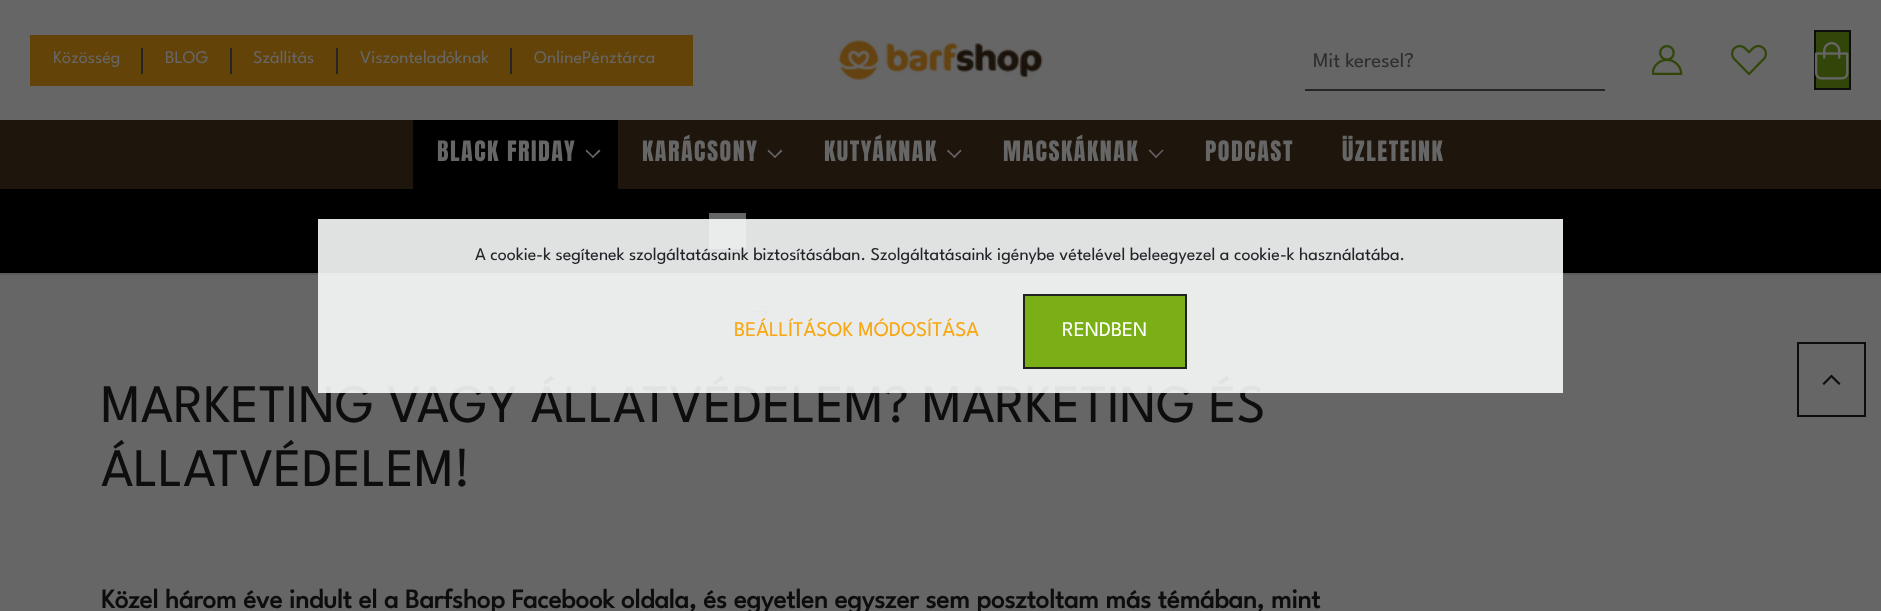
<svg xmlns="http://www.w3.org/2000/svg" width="1881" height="611">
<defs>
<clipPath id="clip1"><rect x="1313" y="53" width="240" height="19"/></clipPath>
</defs>
<rect width="100%" height="100%" fill="#666"/>
<rect y="120" width="1881" height="69" fill="#1e150c"/>
<rect x="30" y="35" width="663" height="51" fill="#634307"/>
<text x="53" y="63" style="font-family:League Spartan;font-size:18px;font-weight:100;fill:#666">Közösség</text>
<rect x="141" y="48" width="2" height="26" fill="#252525"/>
<text x="165" y="63" style="font-family:League Spartan;font-size:18px;font-weight:100;fill:#666">BLOG</text>
<rect x="230" y="48" width="2" height="26" fill="#252525"/>
<text x="253" y="63" style="font-family:League Spartan;font-size:18px;font-weight:100;fill:#666">Szállitás</text>
<rect x="336" y="48" width="2" height="26" fill="#252525"/>
<text x="360" y="63" style="font-family:League Spartan;font-size:18px;font-weight:100;fill:#666">Viszonteladóknak</text>
<rect x="510" y="48" width="2" height="26" fill="#252525"/>
<text x="534" y="63" style="font-family:League Spartan;font-size:18px;font-weight:100;fill:#666">OnlinePénztárca</text>
<image x="838" y="40" width="205" height="40" href="media/1.png"/>
<rect x="1305" y="89" width="300" height="2" fill="#252525"/>
<g clip-path="url(#clip1)">
<text x="1313" y="67" style="font-family:League Spartan;font-size:21px;font-weight:100;fill:#2f2f2f">Mit keresel?</text>
</g>
<image x="1652" y="45" width="31" height="30" href="media/2.png"/>
<image x="1731" y="45" width="36" height="30" href="media/3.png"/>
<rect x="1815" y="31" width="35" height="58" fill="#314608" stroke="#0d0d0d" stroke-width="2"/>
<image x="1815" y="42" width="34" height="38" href="media/4.png"/>
<rect x="413" y="120" width="205" height="69" fill="#000"/>
<text x="437" y="161" style="font-family:Anton;font-size:24px;letter-spacing:1.5px;fill:#666">BLACK FRIDAY</text>
<path d="M599 149.5l1.5 1.5l-7.5 7l-1-1z" fill="#666"/>
<path d="M586.5 149.5l7.5 7.5l-1 1l-7.5-7z" fill="#666"/>
<text x="642" y="161" style="font-family:Anton;font-size:24px;letter-spacing:1.5px;fill:#666">KARÁCSONY</text>
<path d="M781 149.5l1.5 1.5l-7.5 7l-1-1z" fill="#666"/>
<path d="M768.5 149.5l7.5 7.5l-1 1l-7.5-7z" fill="#666"/>
<text x="824" y="161" style="font-family:Anton;font-size:24px;letter-spacing:1.5px;fill:#666">KUTYÁKNAK</text>
<path d="M960.5 149.5l1 1.5l-7 7l-1.5-1z" fill="#666"/>
<path d="M948 149.5l7.5 7.5l-1 1l-7.5-7z" fill="#666"/>
<text x="1003" y="161" style="font-family:Anton;font-size:24px;letter-spacing:1.5px;fill:#666">MACSKÁKNAK</text>
<path d="M1162.5 149.5l1 1l-7.5 7.5l-1-1z" fill="#666"/>
<path d="M1150 149.5l7 7.5l-1 1l-7.5-7.5z" fill="#666"/>
<text x="1205" y="161" style="font-family:Anton;font-size:24px;letter-spacing:1.5px;fill:#666">PODCAST</text>
<text x="1342" y="161" style="font-family:Anton;font-size:24px;letter-spacing:1.5px;fill:#666">ÜZLETEINK</text>
<rect y="273" width="1881" height="2" fill="#5b5b5b"/>
<rect y="189" width="1881" height="84" fill="#000"/>
<rect x="709" y="213" width="37" height="36" fill="#666"/>
<image x="750" y="306" width="18" height="11" href="media/5.png"/>
<text x="101" y="422" style="font-family:League Spartan;font-size:54px;font-weight:100;fill:#0d0d0d">MARKETING VAGY ÁLLATVÉDELEM? MARKETING ÉS</text>
<text x="101" y="486" style="font-family:League Spartan;font-size:54px;font-weight:100;fill:#0d0d0d">ÁLLATVÉDELEM!</text>
<text x="101" y="608" style="font-family:League Spartan;font-size:27px;font-weight:bold;fill:#0d0d0d">Közel három éve indult el a Barfshop Facebook oldala, és egyetlen egyszer sem posztoltam más témában, mint</text>
<rect x="1798" y="343" width="67" height="73" fill="none" stroke="#0d0d0d" stroke-width="2"/>
<path d="M1822.5 383.5l1.5 1.5l7.5-7.5l7.5 7.5l1.5-1.5l-9-9z" fill="#0d0d0d"/>
<rect x="318" y="219" width="1245" height="174" fill="#f8f9fae6"/>
<text x="475" y="260" style="font-family:League Spartan;font-size:18px;font-weight:100;fill:#212529">A cookie-k segítenek szolgáltatásaink biztosításában. Szolgáltatásaink igénybe vételével beleegyezel a cookie-k használatába.</text>
<text x="734" y="336" style="font-family:League Spartan;font-size:21px;font-weight:100;fill:#f7a711">BEÁLLÍTÁSOK MÓDOSÍTÁSA</text>
<rect x="1024" y="295" width="162" height="73" fill="#7ab015" stroke="#212121" stroke-width="2"/>
<text x="1062" y="336" style="font-family:League Spartan;font-size:21px;font-weight:100;fill:#fff">RENDBEN</text>
</svg>
